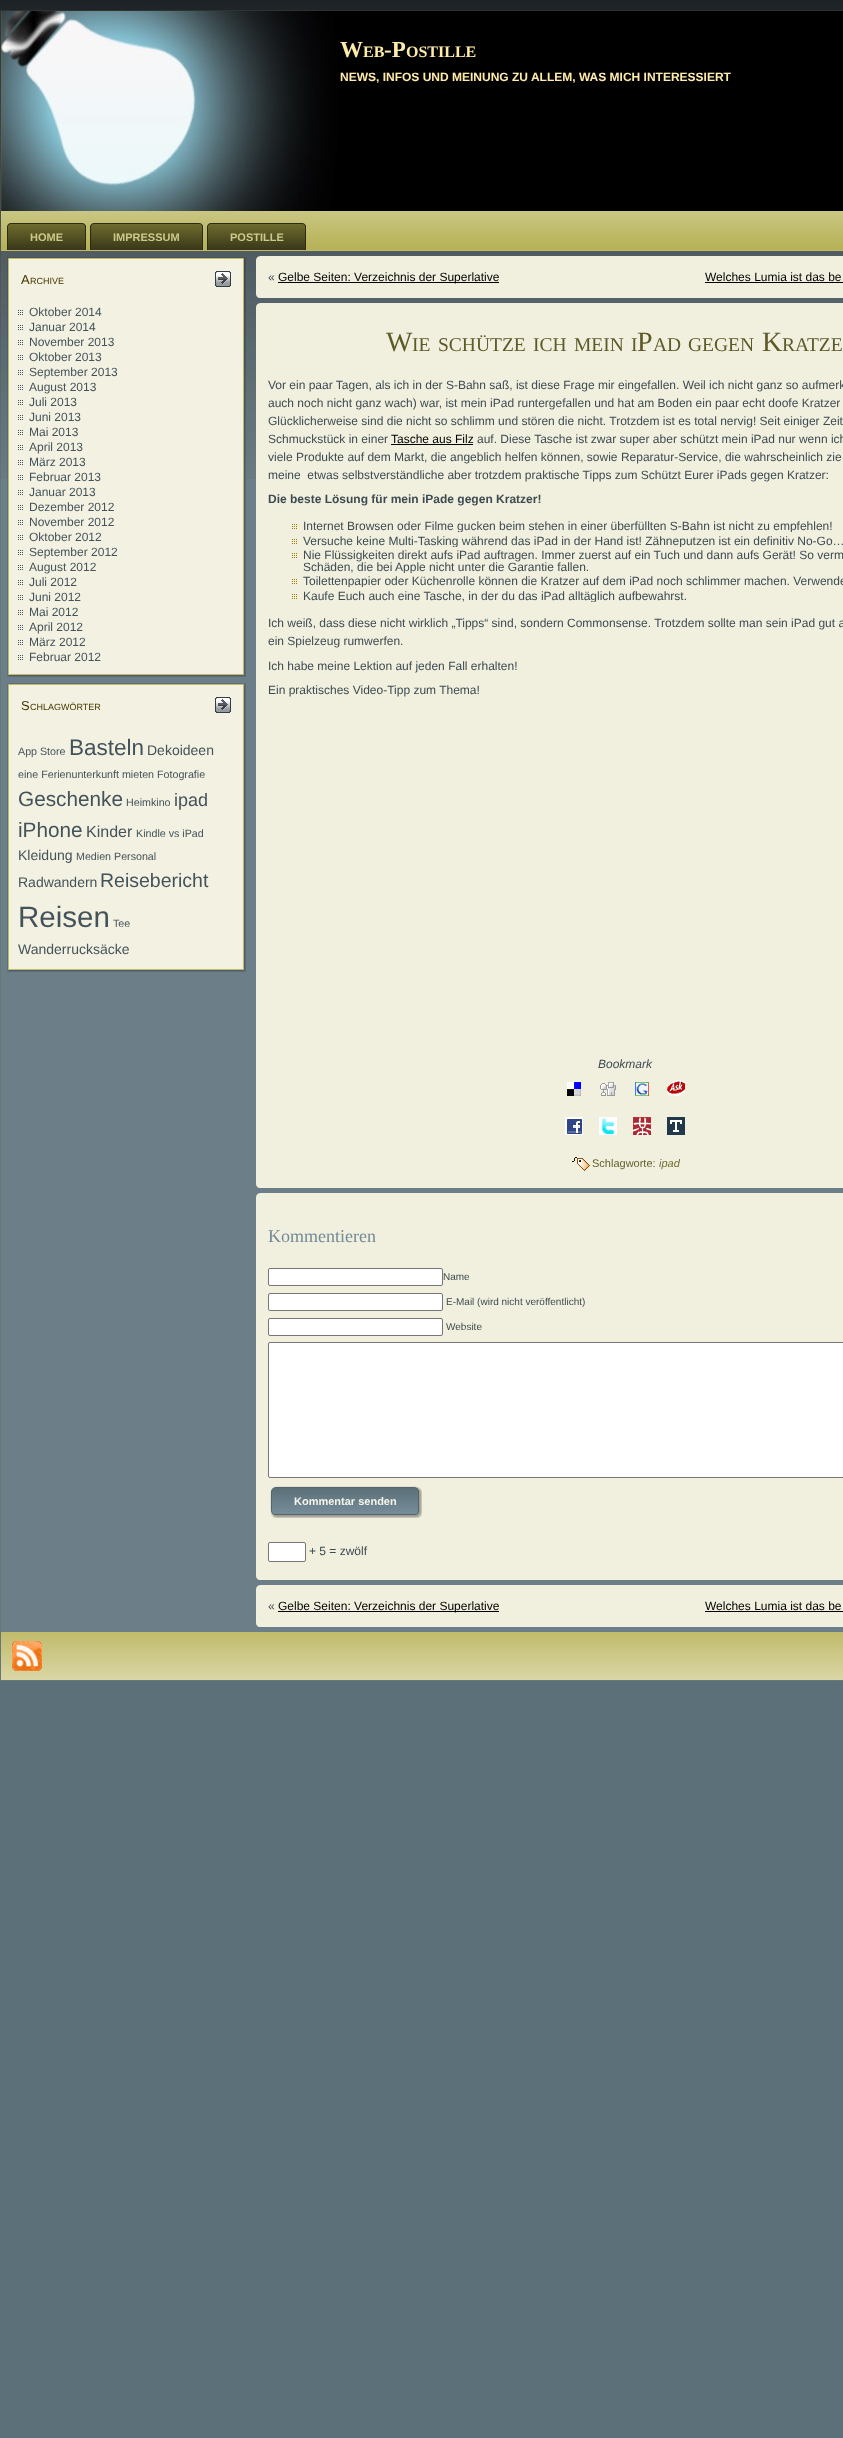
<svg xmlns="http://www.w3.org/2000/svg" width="843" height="2438">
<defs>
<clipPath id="clip1"><rect x="292" y="520" width="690" height="12"/></clipPath>
<clipPath id="clip2"><rect x="292" y="535" width="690" height="12"/></clipPath>
<clipPath id="clip3"><rect x="292" y="549" width="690" height="24"/></clipPath>
<clipPath id="clip4"><rect x="292" y="575" width="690" height="12"/></clipPath>
<clipPath id="clip5"><rect x="292" y="590" width="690" height="12"/></clipPath>
</defs>
<rect width="100%" height="100%" fill="#5c707a"/>
<rect x="1" y="479" width="842" height="1153" fill="#6c7e87"/>
<image x="0" y="0" width="843" height="479" href="media/1.png"/>
<rect y="10" width="1" height="1" fill="#2c312e"/>
<rect x="1" y="10" width="842" height="1" fill="#2f332e"/>
<rect y="11" width="1" height="1669" fill="#c2b8661a"/>
<image x="1" y="11" width="842" height="200" href="media/2.png"/>
<text x="340" y="57" style="font-family:Liberation Serif;font-size:23px;font-weight:bold;fill:#feebaa">W</text>
<text x="363" y="57" style="font-family:Liberation Serif;font-size:16px;font-weight:bold;fill:#feebaa">EB</text>
<text x="384" y="57" style="font-family:Liberation Serif;font-size:23px;font-weight:bold;fill:#feebaa">-P</text>
<text x="406" y="57" style="font-family:Liberation Serif;font-size:16px;font-weight:bold;fill:#feebaa">OSTILLE</text>
<text x="340" y="81" style="font-family:Liberation Sans;font-size:12px;font-weight:bold;fill:#feebaa">NEWS, INFOS UND MEINUNG ZU ALLEM, WAS MICH INTERESSIERT</text>
<image x="1" y="211" width="842" height="40" href="media/3.png"/>
<image x="7" y="223" width="75" height="27" href="media/4.png"/>
<image x="82" y="223" width="4" height="27" href="media/5.png"/>
<text x="30" y="241" style="font-family:Liberation Sans;font-size:11px;font-weight:bold;fill:#cdc989">HOME</text>
<image x="90" y="223" width="109" height="27" href="media/6.png"/>
<image x="199" y="223" width="4" height="27" href="media/5.png"/>
<text x="113" y="241" style="font-family:Liberation Sans;font-size:11px;font-weight:bold;fill:#cdc989">IMPRESSUM</text>
<image x="207" y="223" width="95" height="27" href="media/7.png"/>
<image x="302" y="223" width="4" height="27" href="media/5.png"/>
<text x="230" y="241" style="font-family:Liberation Sans;font-size:11px;font-weight:bold;fill:#cdc989">POSTILLE</text>
<image x="7" y="257" width="8" height="8" href="media/8.png"/>
<image x="15" y="257" width="222" height="8" href="media/9.png"/>
<image x="237" y="257" width="9" height="8" href="media/10.png"/>
<image x="7" y="265" width="8" height="403" href="media/11.png"/>
<rect x="15" y="265" width="222" height="403" fill="#f3f2e2"/>
<image x="237" y="265" width="9" height="403" href="media/12.png"/>
<text x="21" y="284" style="font-family:Liberation Sans;font-size:13px;fill:#463701">A</text>
<text x="30" y="284" style="font-family:Liberation Sans;font-size:9px;fill:#463701">RCHIVE</text>
<image x="215" y="271" width="16" height="16" href="media/13.png"/>
<image x="18" y="310" width="5" height="5" href="media/14.png"/>
<text x="29" y="316" style="font-family:Liberation Sans;font-size:12px;fill:#44535a">Oktober 2014</text>
<image x="18" y="325" width="5" height="5" href="media/14.png"/>
<text x="29" y="331" style="font-family:Liberation Sans;font-size:12px;fill:#44535a">Januar 2014</text>
<image x="18" y="340" width="5" height="5" href="media/14.png"/>
<text x="29" y="346" style="font-family:Liberation Sans;font-size:12px;fill:#44535a">November 2013</text>
<image x="18" y="355" width="5" height="5" href="media/14.png"/>
<text x="29" y="361" style="font-family:Liberation Sans;font-size:12px;fill:#44535a">Oktober 2013</text>
<image x="18" y="370" width="5" height="5" href="media/14.png"/>
<text x="29" y="376" style="font-family:Liberation Sans;font-size:12px;fill:#44535a">September 2013</text>
<image x="18" y="385" width="5" height="5" href="media/14.png"/>
<text x="29" y="391" style="font-family:Liberation Sans;font-size:12px;fill:#44535a">August 2013</text>
<image x="18" y="400" width="5" height="5" href="media/14.png"/>
<text x="29" y="406" style="font-family:Liberation Sans;font-size:12px;fill:#44535a">Juli 2013</text>
<image x="18" y="415" width="5" height="5" href="media/14.png"/>
<text x="29" y="421" style="font-family:Liberation Sans;font-size:12px;fill:#44535a">Juni 2013</text>
<image x="18" y="430" width="5" height="5" href="media/14.png"/>
<text x="29" y="436" style="font-family:Liberation Sans;font-size:12px;fill:#44535a">Mai 2013</text>
<image x="18" y="445" width="5" height="5" href="media/14.png"/>
<text x="29" y="451" style="font-family:Liberation Sans;font-size:12px;fill:#44535a">April 2013</text>
<image x="18" y="460" width="5" height="5" href="media/14.png"/>
<text x="29" y="466" style="font-family:Liberation Sans;font-size:12px;fill:#44535a">März 2013</text>
<image x="18" y="475" width="5" height="5" href="media/14.png"/>
<text x="29" y="481" style="font-family:Liberation Sans;font-size:12px;fill:#44535a">Februar 2013</text>
<image x="18" y="490" width="5" height="5" href="media/14.png"/>
<text x="29" y="496" style="font-family:Liberation Sans;font-size:12px;fill:#44535a">Januar 2013</text>
<image x="18" y="505" width="5" height="5" href="media/14.png"/>
<text x="29" y="511" style="font-family:Liberation Sans;font-size:12px;fill:#44535a">Dezember 2012</text>
<image x="18" y="520" width="5" height="5" href="media/14.png"/>
<text x="29" y="526" style="font-family:Liberation Sans;font-size:12px;fill:#44535a">November 2012</text>
<image x="18" y="535" width="5" height="5" href="media/14.png"/>
<text x="29" y="541" style="font-family:Liberation Sans;font-size:12px;fill:#44535a">Oktober 2012</text>
<image x="18" y="550" width="5" height="5" href="media/14.png"/>
<text x="29" y="556" style="font-family:Liberation Sans;font-size:12px;fill:#44535a">September 2012</text>
<image x="18" y="565" width="5" height="5" href="media/14.png"/>
<text x="29" y="571" style="font-family:Liberation Sans;font-size:12px;fill:#44535a">August 2012</text>
<image x="18" y="580" width="5" height="5" href="media/14.png"/>
<text x="29" y="586" style="font-family:Liberation Sans;font-size:12px;fill:#44535a">Juli 2012</text>
<image x="18" y="595" width="5" height="5" href="media/14.png"/>
<text x="29" y="601" style="font-family:Liberation Sans;font-size:12px;fill:#44535a">Juni 2012</text>
<image x="18" y="610" width="5" height="5" href="media/14.png"/>
<text x="29" y="616" style="font-family:Liberation Sans;font-size:12px;fill:#44535a">Mai 2012</text>
<image x="18" y="625" width="5" height="5" href="media/14.png"/>
<text x="29" y="631" style="font-family:Liberation Sans;font-size:12px;fill:#44535a">April 2012</text>
<image x="18" y="640" width="5" height="5" href="media/14.png"/>
<text x="29" y="646" style="font-family:Liberation Sans;font-size:12px;fill:#44535a">März 2012</text>
<image x="18" y="655" width="5" height="5" href="media/14.png"/>
<text x="29" y="661" style="font-family:Liberation Sans;font-size:12px;fill:#44535a">Februar 2012</text>
<image x="7" y="668" width="8" height="9" href="media/15.png"/>
<image x="15" y="668" width="222" height="9" href="media/16.png"/>
<image x="237" y="668" width="9" height="9" href="media/17.png"/>
<image x="7" y="683" width="8" height="8" href="media/18.png"/>
<image x="15" y="683" width="222" height="8" href="media/19.png"/>
<image x="237" y="683" width="9" height="8" href="media/20.png"/>
<image x="7" y="691" width="8" height="272" href="media/21.png"/>
<rect x="15" y="691" width="222" height="272" fill="#f3f2e2"/>
<image x="237" y="691" width="9" height="272" href="media/22.png"/>
<text x="21" y="710" style="font-family:Liberation Sans;font-size:13px;fill:#463701">S</text>
<text x="30" y="710" style="font-family:Liberation Sans;font-size:9px;fill:#463701">CHLAGWÖRTER</text>
<image x="215" y="697" width="16" height="16" href="media/13.png"/>
<text x="18" y="755" style="font-family:Liberation Sans;font-size:10.7px;fill:#44535a">App Store</text>
<text x="69" y="755" style="font-family:Liberation Sans;font-size:22.5px;fill:#44535a">Basteln</text>
<text x="147" y="755" style="font-family:Liberation Sans;font-size:14px;fill:#44535a">Dekoideen</text>
<text x="18" y="778" style="font-family:Liberation Sans;font-size:10.7px;fill:#44535a">eine Ferienunterkunft mieten Fotografie</text>
<text x="18" y="806" style="font-family:Liberation Sans;font-size:20.75px;fill:#44535a">Geschenke</text>
<text x="126" y="806" style="font-family:Liberation Sans;font-size:10.7px;fill:#44535a">Heimkino</text>
<text x="174" y="806" style="font-family:Liberation Sans;font-size:18px;fill:#44535a">ipad</text>
<text x="18" y="837" style="font-family:Liberation Sans;font-size:20.75px;fill:#44535a">iPhone</text>
<text x="86" y="837" style="font-family:Liberation Sans;font-size:16px;fill:#44535a">Kinder</text>
<text x="136" y="837" style="font-family:Liberation Sans;font-size:10.7px;fill:#44535a">Kindle vs iPad</text>
<text x="18" y="860" style="font-family:Liberation Sans;font-size:14px;fill:#44535a">Kleidung</text>
<text x="76" y="860" style="font-family:Liberation Sans;font-size:10.7px;fill:#44535a">Medien</text>
<text x="114" y="860" style="font-family:Liberation Sans;font-size:10.7px;fill:#44535a">Personal</text>
<text x="18" y="887" style="font-family:Liberation Sans;font-size:14px;fill:#44535a">Radwandern</text>
<text x="100" y="887" style="font-family:Liberation Sans;font-size:19.5px;fill:#44535a">Reisebericht</text>
<text x="18" y="927" style="font-family:Liberation Sans;font-size:29.5px;fill:#44535a">Reisen</text>
<text x="113" y="927" style="font-family:Liberation Sans;font-size:10.7px;fill:#44535a">Tee</text>
<text x="18" y="954" style="font-family:Liberation Sans;font-size:14px;fill:#44535a">Wanderrucksäcke</text>
<image x="7" y="963" width="8" height="9" href="media/15.png"/>
<image x="15" y="963" width="222" height="9" href="media/16.png"/>
<image x="237" y="963" width="9" height="9" href="media/17.png"/>
<image x="256" y="256" width="4" height="4" href="media/23.png"/>
<rect x="260" y="256" width="583" height="4" fill="#f1f0df"/>
<rect x="256" y="260" width="587" height="34" fill="#f1f0df"/>
<text x="268" y="281" style="font-family:Liberation Sans;font-size:12px;fill:#3d4b51">«</text>
<rect x="278" y="282" width="221" height="1" fill="#000"/>
<text x="278" y="281" style="font-family:Liberation Sans;font-size:12px;fill:#000">Gelbe Seiten: Verzeichnis der Superlative</text>
<text x="705" y="281" style="font-family:Liberation Sans;font-size:12px;fill:#000">Welches Lumia ist das be</text>
<rect x="705" y="282" width="138" height="1" fill="#000"/>
<image x="256" y="294" width="4" height="4" href="media/24.png"/>
<rect x="260" y="294" width="583" height="4" fill="#f1f0df"/>
<image x="256" y="303" width="4" height="4" href="media/25.png"/>
<rect x="260" y="303" width="583" height="4" fill="#f1f0df"/>
<rect x="256" y="307" width="587" height="877" fill="#f1f0df"/>
<text x="386" y="351" style="font-family:Liberation Serif;font-size:28px;fill:#5d5a28">W</text>
<text x="412" y="351" style="font-family:Liberation Serif;font-size:19.5px;fill:#5d5a28">IE</text>
<text x="438" y="351" style="font-family:Liberation Serif;font-size:19.5px;fill:#5d5a28">SCHÜTZE</text>
<text x="533" y="351" style="font-family:Liberation Serif;font-size:19.5px;fill:#5d5a28">ICH</text>
<text x="574" y="351" style="font-family:Liberation Serif;font-size:19.5px;fill:#5d5a28">MEIN</text>
<text x="631" y="351" style="font-family:Liberation Serif;font-size:19.5px;fill:#5d5a28">I</text>
<text x="637" y="351" style="font-family:Liberation Serif;font-size:28px;fill:#5d5a28">P</text>
<text x="653" y="351" style="font-family:Liberation Serif;font-size:19.5px;fill:#5d5a28">AD</text>
<text x="688" y="351" style="font-family:Liberation Serif;font-size:19.5px;fill:#5d5a28">GEGEN</text>
<text x="762" y="351" style="font-family:Liberation Serif;font-size:28px;fill:#5d5a28">K</text>
<text x="782" y="351" style="font-family:Liberation Serif;font-size:19.5px;fill:#5d5a28">RATZE</text>
<text x="268" y="389" style="font-family:Liberation Sans;font-size:12px;fill:#3d4b51">Vor ein paar Tagen, als ich in der S-Bahn saß, ist diese Frage mir eingefallen. Weil ich nicht ganz so aufmerk</text>
<text x="268" y="407" style="font-family:Liberation Sans;font-size:12px;fill:#3d4b51">auch noch nicht ganz wach) war, ist mein iPad runtergefallen und hat am Boden ein paar echt doofe Kratzer</text>
<text x="268" y="425" style="font-family:Liberation Sans;font-size:12px;fill:#3d4b51">Glücklicherweise sind die nicht so schlimm und stören die nicht. Trotzdem ist es total nervig! Seit einiger Zeit</text>
<text x="268" y="443" style="font-family:Liberation Sans;font-size:12px;fill:#3d4b51">Schmuckstück in einer</text>
<text x="391" y="443" style="font-family:Liberation Sans;font-size:12px;fill:#000">Tasche aus Filz</text>
<rect x="391" y="444" width="82" height="1" fill="#000"/>
<text x="477" y="443" style="font-family:Liberation Sans;font-size:12px;fill:#3d4b51">auf. Diese Tasche ist zwar super aber schützt mein iPad nur wenn ich</text>
<text x="268" y="461" style="font-family:Liberation Sans;font-size:12px;fill:#3d4b51">viele Produkte auf dem Markt, die angeblich helfen können, sowie Reparatur-Service, die wahrscheinlich zie</text>
<text x="268" y="479" style="font-family:Liberation Sans;font-size:12px;fill:#3d4b51" xml:space="preserve">meine  etwas selbstverständliche aber trotzdem praktische Tipps zum Schützt Eurer iPads gegen Kratzer:</text>
<text x="268" y="503" style="font-family:Liberation Sans;font-size:12px;font-weight:bold;fill:#3d4b51">Die beste Lösung für mein iPade gegen Kratzer!</text>
<image x="292" y="524" width="5" height="5" href="media/26.png"/>
<g clip-path="url(#clip1)">
<text x="303" y="530" style="font-family:Liberation Sans;font-size:12px;fill:#3d4b51">Internet Browsen oder Filme gucken beim stehen in einer überfüllten S-Bahn ist nicht zu empfehlen!</text>
</g>
<image x="292" y="539" width="5" height="5" href="media/26.png"/>
<g clip-path="url(#clip2)">
<text x="303" y="545" style="font-family:Liberation Sans;font-size:12px;fill:#3d4b51">Versuche keine Multi-Tasking während das iPad in der Hand ist! Zähneputzen ist ein definitiv No-Go…</text>
</g>
<image x="292" y="553" width="5" height="5" href="media/26.png"/>
<text x="303" y="559" style="font-family:Liberation Sans;font-size:12px;fill:#3d4b51">Nie Flüssigkeiten direkt aufs iPad auftragen. Immer zuerst auf ein Tuch und dann aufs Gerät! So verm</text>
<g clip-path="url(#clip3)">
<text x="303" y="571" style="font-family:Liberation Sans;font-size:12px;fill:#3d4b51">Schäden, die bei Apple nicht unter die Garantie fallen.</text>
</g>
<image x="292" y="579" width="5" height="5" href="media/26.png"/>
<g clip-path="url(#clip4)">
<text x="303" y="585" style="font-family:Liberation Sans;font-size:12px;fill:#3d4b51">Toilettenpapier oder Küchenrolle können die Kratzer auf dem iPad noch schlimmer machen. Verwende</text>
</g>
<image x="292" y="594" width="5" height="5" href="media/26.png"/>
<g clip-path="url(#clip5)">
<text x="303" y="600" style="font-family:Liberation Sans;font-size:12px;fill:#3d4b51">Kaufe Euch auch eine Tasche, in der du das iPad alltäglich aufbewahrst.</text>
</g>
<text x="268" y="627" style="font-family:Liberation Sans;font-size:12px;fill:#3d4b51">Ich weiß, dass diese nicht wirklich „Tipps“ sind, sondern Commonsense. Trotzdem sollte man sein iPad gut a</text>
<text x="268" y="645" style="font-family:Liberation Sans;font-size:12px;fill:#3d4b51">ein Spielzeug rumwerfen.</text>
<text x="268" y="670" style="font-family:Liberation Sans;font-size:12px;fill:#3d4b51">Ich habe meine Lektion auf jeden Fall erhalten!</text>
<text x="268" y="694" style="font-family:Liberation Sans;font-size:12px;fill:#3d4b51">Ein praktisches Video-Tipp zum Thema!</text>
<text x="598" y="1068" style="font-family:Liberation Sans;font-size:12px;font-style:italic;fill:#3d4b51">Bookmark</text>
<image x="567" y="1082" width="14" height="14" href="media/27.png"/>
<image x="600" y="1082" width="16" height="14" href="media/28.png"/>
<image x="635" y="1082" width="14" height="14" href="media/29.png"/>
<image x="667" y="1080" width="18" height="16" href="media/30.png"/>
<image x="565" y="1117" width="18" height="18" href="media/31.png"/>
<image x="599" y="1117" width="18" height="18" href="media/32.png"/>
<image x="633" y="1117" width="18" height="18" href="media/33.png"/>
<image x="667" y="1117" width="18" height="18" href="media/34.png"/>
<image x="572" y="1157" width="18" height="14" href="media/35.png"/>
<text x="592" y="1167" style="font-family:Liberation Sans;font-size:11px;fill:#64612b">Schlagworte:</text>
<text x="659" y="1167" style="font-family:Liberation Sans;font-size:11px;font-style:italic;fill:#6f6c2f">ipad</text>
<image x="256" y="1184" width="4" height="4" href="media/36.png"/>
<rect x="260" y="1184" width="583" height="4" fill="#f1f0df"/>
<image x="256" y="1193" width="4" height="4" href="media/37.png"/>
<rect x="260" y="1193" width="583" height="4" fill="#f1f0df"/>
<rect x="256" y="1197" width="587" height="379" fill="#f1f0df"/>
<text x="268" y="1242" style="font-family:Liberation Serif;font-size:18px;fill:#738a96">Kommentieren</text>
<rect x="268.5" y="1268.5" width="174" height="17" rx="1.5" fill="#fff" stroke="#767676"/>
<text x="443" y="1280" style="font-family:Liberation Sans;font-size:10px;fill:#3d4b51">Name</text>
<rect x="268.5" y="1293.5" width="174" height="17" rx="1.5" fill="#fff" stroke="#767676"/>
<text x="446" y="1305" style="font-family:Liberation Sans;font-size:10px;fill:#3d4b51">E-Mail (wird nicht veröffentlicht)</text>
<rect x="268.5" y="1318.5" width="174" height="17" rx="1.5" fill="#fff" stroke="#767676"/>
<text x="446" y="1330" style="font-family:Liberation Sans;font-size:10px;fill:#3d4b51">Website</text>
<rect x="268.5" y="1342.5" width="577" height="135" rx="1.5" fill="#fff" stroke="#767676"/>
<image x="270" y="1486" width="141" height="32" href="media/38.png"/>
<image x="411" y="1486" width="11" height="32" href="media/39.png"/>
<text x="294" y="1505" style="font-family:Liberation Sans;font-size:11px;font-weight:bold;fill:#f6f5ea">Kommentar senden</text>
<rect x="268.5" y="1542.5" width="37" height="19" rx="1.5" fill="#fff" stroke="#767676"/>
<text x="309" y="1555" style="font-family:Liberation Sans;font-size:12px;fill:#3d4b51">+ 5 = zwölf</text>
<image x="256" y="1576" width="4" height="4" href="media/36.png"/>
<rect x="260" y="1576" width="583" height="4" fill="#f1f0df"/>
<image x="256" y="1585" width="4" height="4" href="media/37.png"/>
<rect x="260" y="1585" width="583" height="4" fill="#f1f0df"/>
<rect x="256" y="1589" width="587" height="34" fill="#f1f0df"/>
<text x="268" y="1610" style="font-family:Liberation Sans;font-size:12px;fill:#3d4b51">«</text>
<rect x="278" y="1611" width="221" height="1" fill="#000"/>
<text x="278" y="1610" style="font-family:Liberation Sans;font-size:12px;fill:#000">Gelbe Seiten: Verzeichnis der Superlative</text>
<text x="705" y="1610" style="font-family:Liberation Sans;font-size:12px;fill:#000">Welches Lumia ist das be</text>
<rect x="705" y="1611" width="138" height="1" fill="#000"/>
<image x="256" y="1623" width="4" height="4" href="media/36.png"/>
<rect x="260" y="1623" width="583" height="4" fill="#f1f0df"/>
<image x="1" y="1632" width="842" height="48" href="media/40.png"/>
<image x="12" y="1641" width="30" height="30" href="media/41.png"/>
<rect y="1680" width="1" height="1" fill="#657779"/>
<rect x="1" y="1680" width="842" height="1" fill="#667778"/>
</svg>
